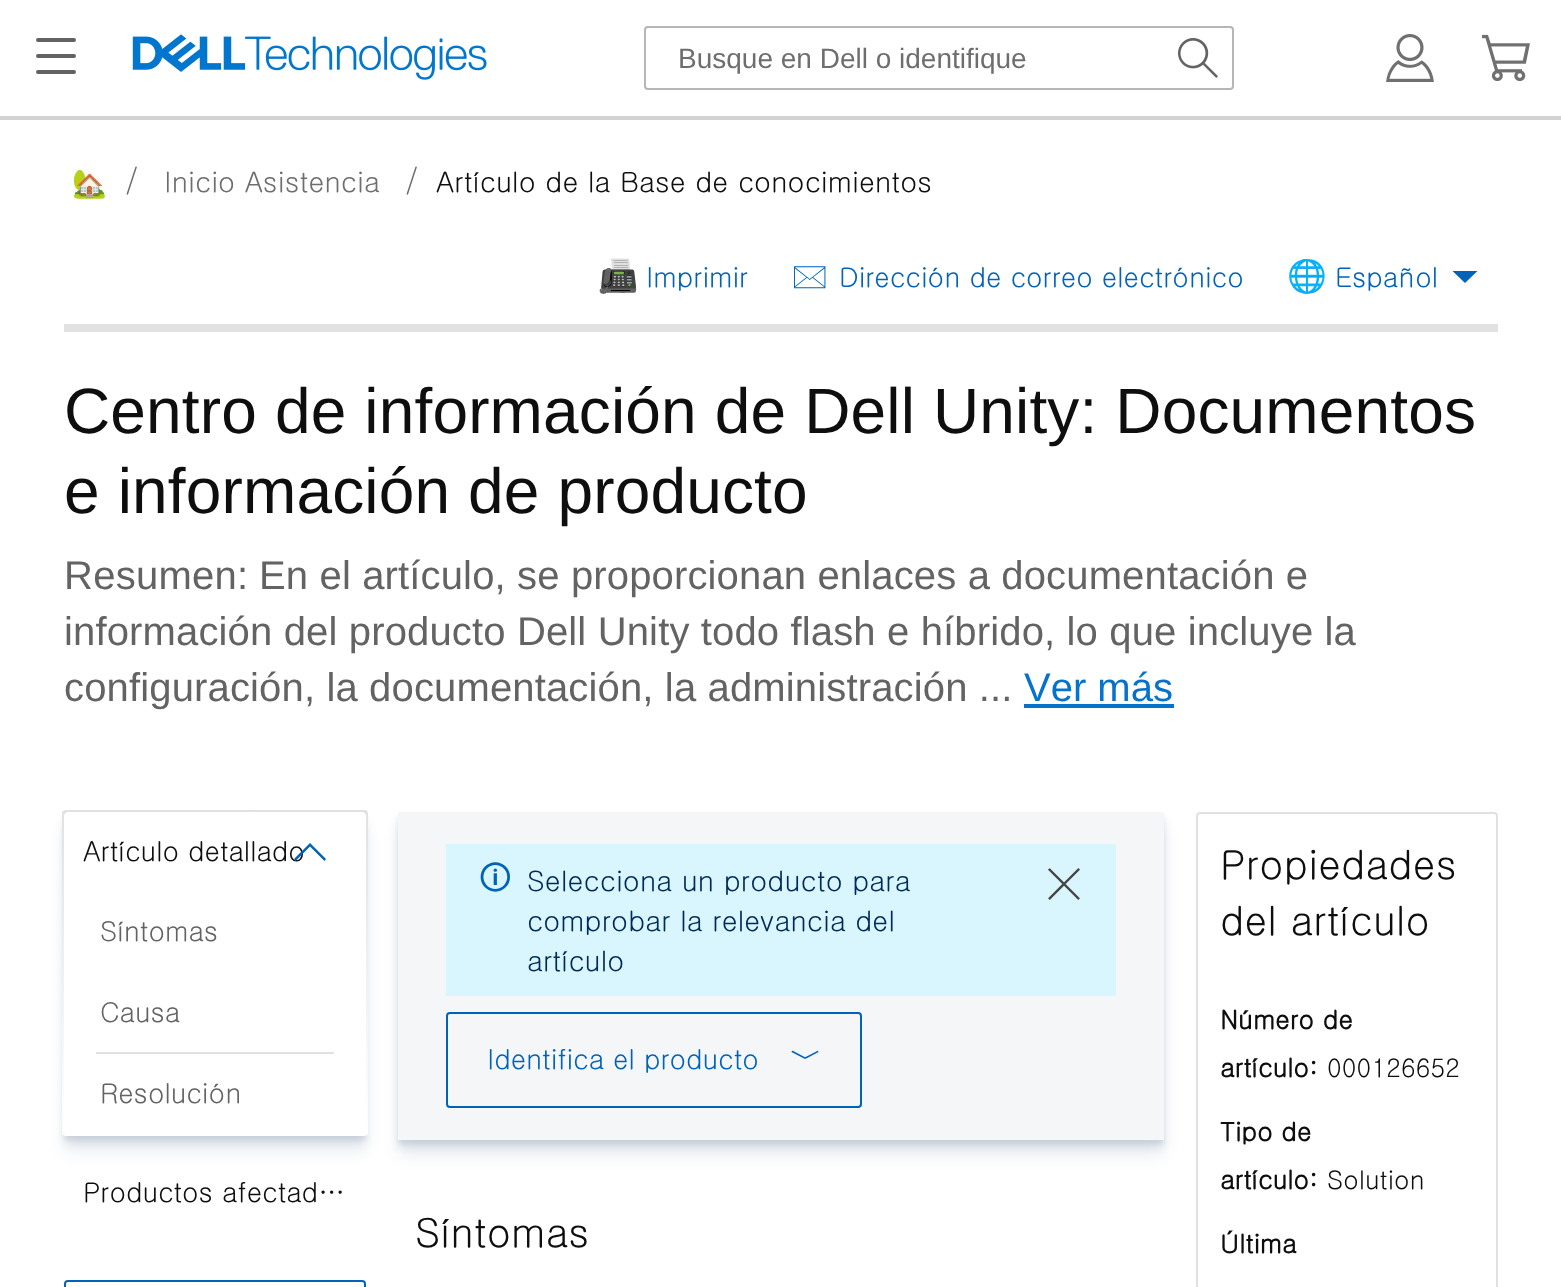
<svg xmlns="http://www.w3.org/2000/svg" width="1561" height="1287">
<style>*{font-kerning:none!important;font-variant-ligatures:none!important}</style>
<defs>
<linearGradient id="g1" gradientUnits="userSpaceOnUse" x1="215" y1="810" x2="215" y2="1136"><stop offset="0" stop-color="#e1e1e1"/><stop offset="1" stop-color="#fff"/></linearGradient>
</defs>
<rect width="100%" height="100%" fill="#fff"/>
<rect y="116" width="1561" height="4" fill="#d2d2d2"/>
<rect x="36" y="38" width="40" height="4" rx="2" fill="#636363"/>
<rect x="36" y="54" width="40" height="4" rx="2" fill="#636363"/>
<rect x="36" y="70" width="40" height="4" rx="2" fill="#636363"/>
<image x="132" y="34" width="355" height="46" href="media/1.png"/>
<rect x="645" y="27" width="588" height="62" rx="3" fill="none" stroke="#b6b6b6" stroke-width="2"/>
<text x="678" y="68" style="font-family:Liberation Sans;font-size:28px;fill:#6e6e6e">Busque en Dell o identifique</text>
<image x="1178" y="38" width="40" height="40" href="media/2.png"/>
<image x="1386" y="34" width="48" height="48" href="media/3.png"/>
<image x="1482" y="34" width="48" height="47" href="media/4.png"/>
<text x="72" y="193" style="font-family:Noto Color Emoji;font-size:28px;letter-spacing:0.15px;fill:#6e6e6e">🏡</text>
<text x="125" y="192" style="font-family:Gulim;font-size:32px;letter-spacing:0.15px;fill:#6e6e6e">/</text>
<text x="164" y="192" style="font-family:Gulim;font-size:28px;letter-spacing:0.15px;fill:#6e6e6e">Inicio Asistencia</text>
<text x="405" y="192" style="font-family:Gulim;font-size:32px;letter-spacing:0.15px;fill:#6e6e6e">/</text>
<text x="436" y="192" style="font-family:Gulim;font-size:28px;letter-spacing:0.15px;fill:#0e0e0e">Artículo de la Base de conocimientos</text>
<text x="598" y="287" style="font-family:Noto Color Emoji;font-size:32px;fill:#0063b8">📠</text>
<text x="646" y="287" style="font-family:Gulim;font-size:27.25px;fill:#0063b8">Imprimir</text>
<text x="791" y="287" style="font-family:'Noto Sans Symbols 2';font-size:32px;fill:#0063b8">🖂</text>
<text x="839" y="287" style="font-family:Gulim;font-size:27.25px;fill:#0063b8">Dirección de correo electrónico</text>
<text x="1287" y="287" style="font-family:Noto Color Emoji;font-size:32px;fill:#0063b8">🌐</text>
<text x="1335" y="287" style="font-family:Gulim;font-size:27.25px;fill:#0063b8">Español</text>
<path d="M1465 283l12.5-12h-25z" fill="#0063b8"/>
<rect x="64" y="324" width="1434" height="8" fill="#e1e1e1"/>
<text x="64" y="433" style="font-family:Liberation Sans;font-size:64px;letter-spacing:0.15px;fill:#0e0e0e">Centro de información de Dell Unity: Documentos</text>
<text x="64" y="513" style="font-family:Liberation Sans;font-size:64px;letter-spacing:0.15px;fill:#0e0e0e">e información de producto</text>
<text x="259" y="589" style="font-family:Liberation Sans;font-size:40px;letter-spacing:0.15px;fill:#636363">En el artículo, se proporcionan enlaces a documentación e</text>
<text x="64" y="645" style="font-family:Liberation Sans;font-size:40px;letter-spacing:0.15px;fill:#636363">información del producto Dell Unity todo flash e híbrido, lo que incluye la</text>
<text x="64" y="701" style="font-family:Liberation Sans;font-size:40px;letter-spacing:0.15px;fill:#636363">configuración, la documentación, la administración ...</text>
<text x="1024" y="701" style="font-family:Liberation Sans;font-size:40px;fill:#0672cb">Ver más</text>
<rect x="1024" y="704" width="150" height="4" fill="#0672cb"/>
<text x="64" y="589" style="font-family:Liberation Sans;font-size:40px;letter-spacing:0.25px;fill:#636363">Resumen:</text>
<rect x="64" y="828" width="302" height="324" fill="#002a5814" filter="blur(8px)"/>
<rect x="64" y="820" width="302" height="324" fill="#002a5814" filter="blur(4px)"/>
<rect x="64" y="816" width="302" height="324" fill="#002a5814" filter="blur(2px)"/>
<rect x="64" y="1135" width="302" height="1" fill="#e1e1e1"/>
<rect x="62" y="810" width="306" height="326" rx="4" fill="url(#g1)"/>
<path d="M68 812h294c2 0 4 2 4 4v76h-302v-76c0-2 2-4 4-4z" fill="#fff"/>
<text x="83" y="861" style="font-family:Gulim;font-size:27.25px;fill:#0e0e0e">Artículo detallado</text>
<path d="M295.5 861l14.5-14.5l14.5 14.5l1.5-2l-16-16l-16 16z" fill="#0063b8"/>
<path d="M64 892h302v238c0 2-2 4-4 4h-294c-2 0-4-2-4-4z" fill="#fff"/>
<text x="100" y="941" style="font-family:Gulim;font-size:27.25px;fill:#636363">Síntomas</text>
<text x="100" y="1022" style="font-family:Gulim;font-size:27.25px;fill:#636363">Causa</text>
<rect x="96" y="1052" width="238" height="2" fill="#e1e1e1"/>
<text x="100" y="1103" style="font-family:Gulim;font-size:27.25px;fill:#636363">Resolución</text>
<text x="83" y="1202" style="font-family:Gulim;font-size:27.25px;fill:#0e0e0e">Productos afectad…</text>
<rect x="65" y="1281" width="300" height="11" rx="3" fill="none" stroke="#0063b8" stroke-width="2"/>
<rect x="398" y="828" width="766" height="328" fill="#002a5814" filter="blur(8px)"/>
<rect x="398" y="820" width="766" height="328" fill="#002a5814" filter="blur(4px)"/>
<rect x="398" y="816" width="766" height="328" fill="#002a5814" filter="blur(2px)"/>
<rect x="398" y="812" width="766" height="328" fill="#f5f6f7"/>
<rect x="446" y="844" width="670" height="152" fill="#d9f5fd"/>
<text x="479" y="889" style="font-family:'Noto Sans Symbols 2';font-size:32px;letter-spacing:0.15px;fill:#0063b8">🛈</text>
<text x="527" y="891" style="font-family:Gulim;font-size:28px;letter-spacing:0.15px;fill:#002a58">Selecciona un producto para</text>
<text x="527" y="931" style="font-family:Gulim;font-size:28px;letter-spacing:0.15px;fill:#002a58">comprobar la relevancia del</text>
<text x="527" y="971" style="font-family:Gulim;font-size:28px;letter-spacing:0.15px;fill:#002a58">artículo</text>
<image x="1048" y="868" width="32" height="32" href="media/5.png"/>
<rect x="447" y="1013" width="414" height="94" rx="3" fill="none" stroke="#0063b8" stroke-width="2"/>
<text x="487" y="1069" style="font-family:Gulim;font-size:27.25px;fill:#0063b8">Identifica el producto</text>
<text x="790" y="1069" style="font-family:WenQuanYi Zen Hei;font-size:32px;font-weight:500;fill:#0063b8">﹀</text>
<text x="415" y="1247" style="font-family:Gulim;font-size:40px;letter-spacing:0.15px;fill:#0e0e0e">Síntomas</text>
<rect x="1197" y="813" width="300" height="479" rx="3" fill="none" stroke="#e1e1e1" stroke-width="2"/>
<text x="1220" y="879" style="font-family:Gulim;font-size:40px;letter-spacing:0.25px;fill:#0e0e0e">Propiedades</text>
<text x="1220" y="935" style="font-family:Gulim;font-size:40px;letter-spacing:0.25px;fill:#0e0e0e">del artículo</text>
<text x="1220" y="1029" style="font-family:Gulim;font-size:25.5px;font-weight:bold;letter-spacing:0.15px;fill:#0e0e0e">Número de</text>
<text x="1220" y="1077" style="font-family:Gulim;font-size:25.5px;font-weight:bold;letter-spacing:0.15px;fill:#0e0e0e">artículo:</text>
<text x="1327" y="1077" style="font-family:Gulim;font-size:25.5px;letter-spacing:0.15px;fill:#0e0e0e">000126652</text>
<text x="1220" y="1141" style="font-family:Gulim;font-size:25.5px;font-weight:bold;letter-spacing:0.15px;fill:#0e0e0e">Tipo de</text>
<text x="1220" y="1189" style="font-family:Gulim;font-size:25.5px;font-weight:bold;letter-spacing:0.15px;fill:#0e0e0e">artículo:</text>
<text x="1327" y="1189" style="font-family:Gulim;font-size:25.5px;letter-spacing:0.15px;fill:#0e0e0e">Solution</text>
<text x="1220" y="1253" style="font-family:Gulim;font-size:25.5px;font-weight:bold;letter-spacing:0.15px;fill:#0e0e0e">Última</text>
</svg>
